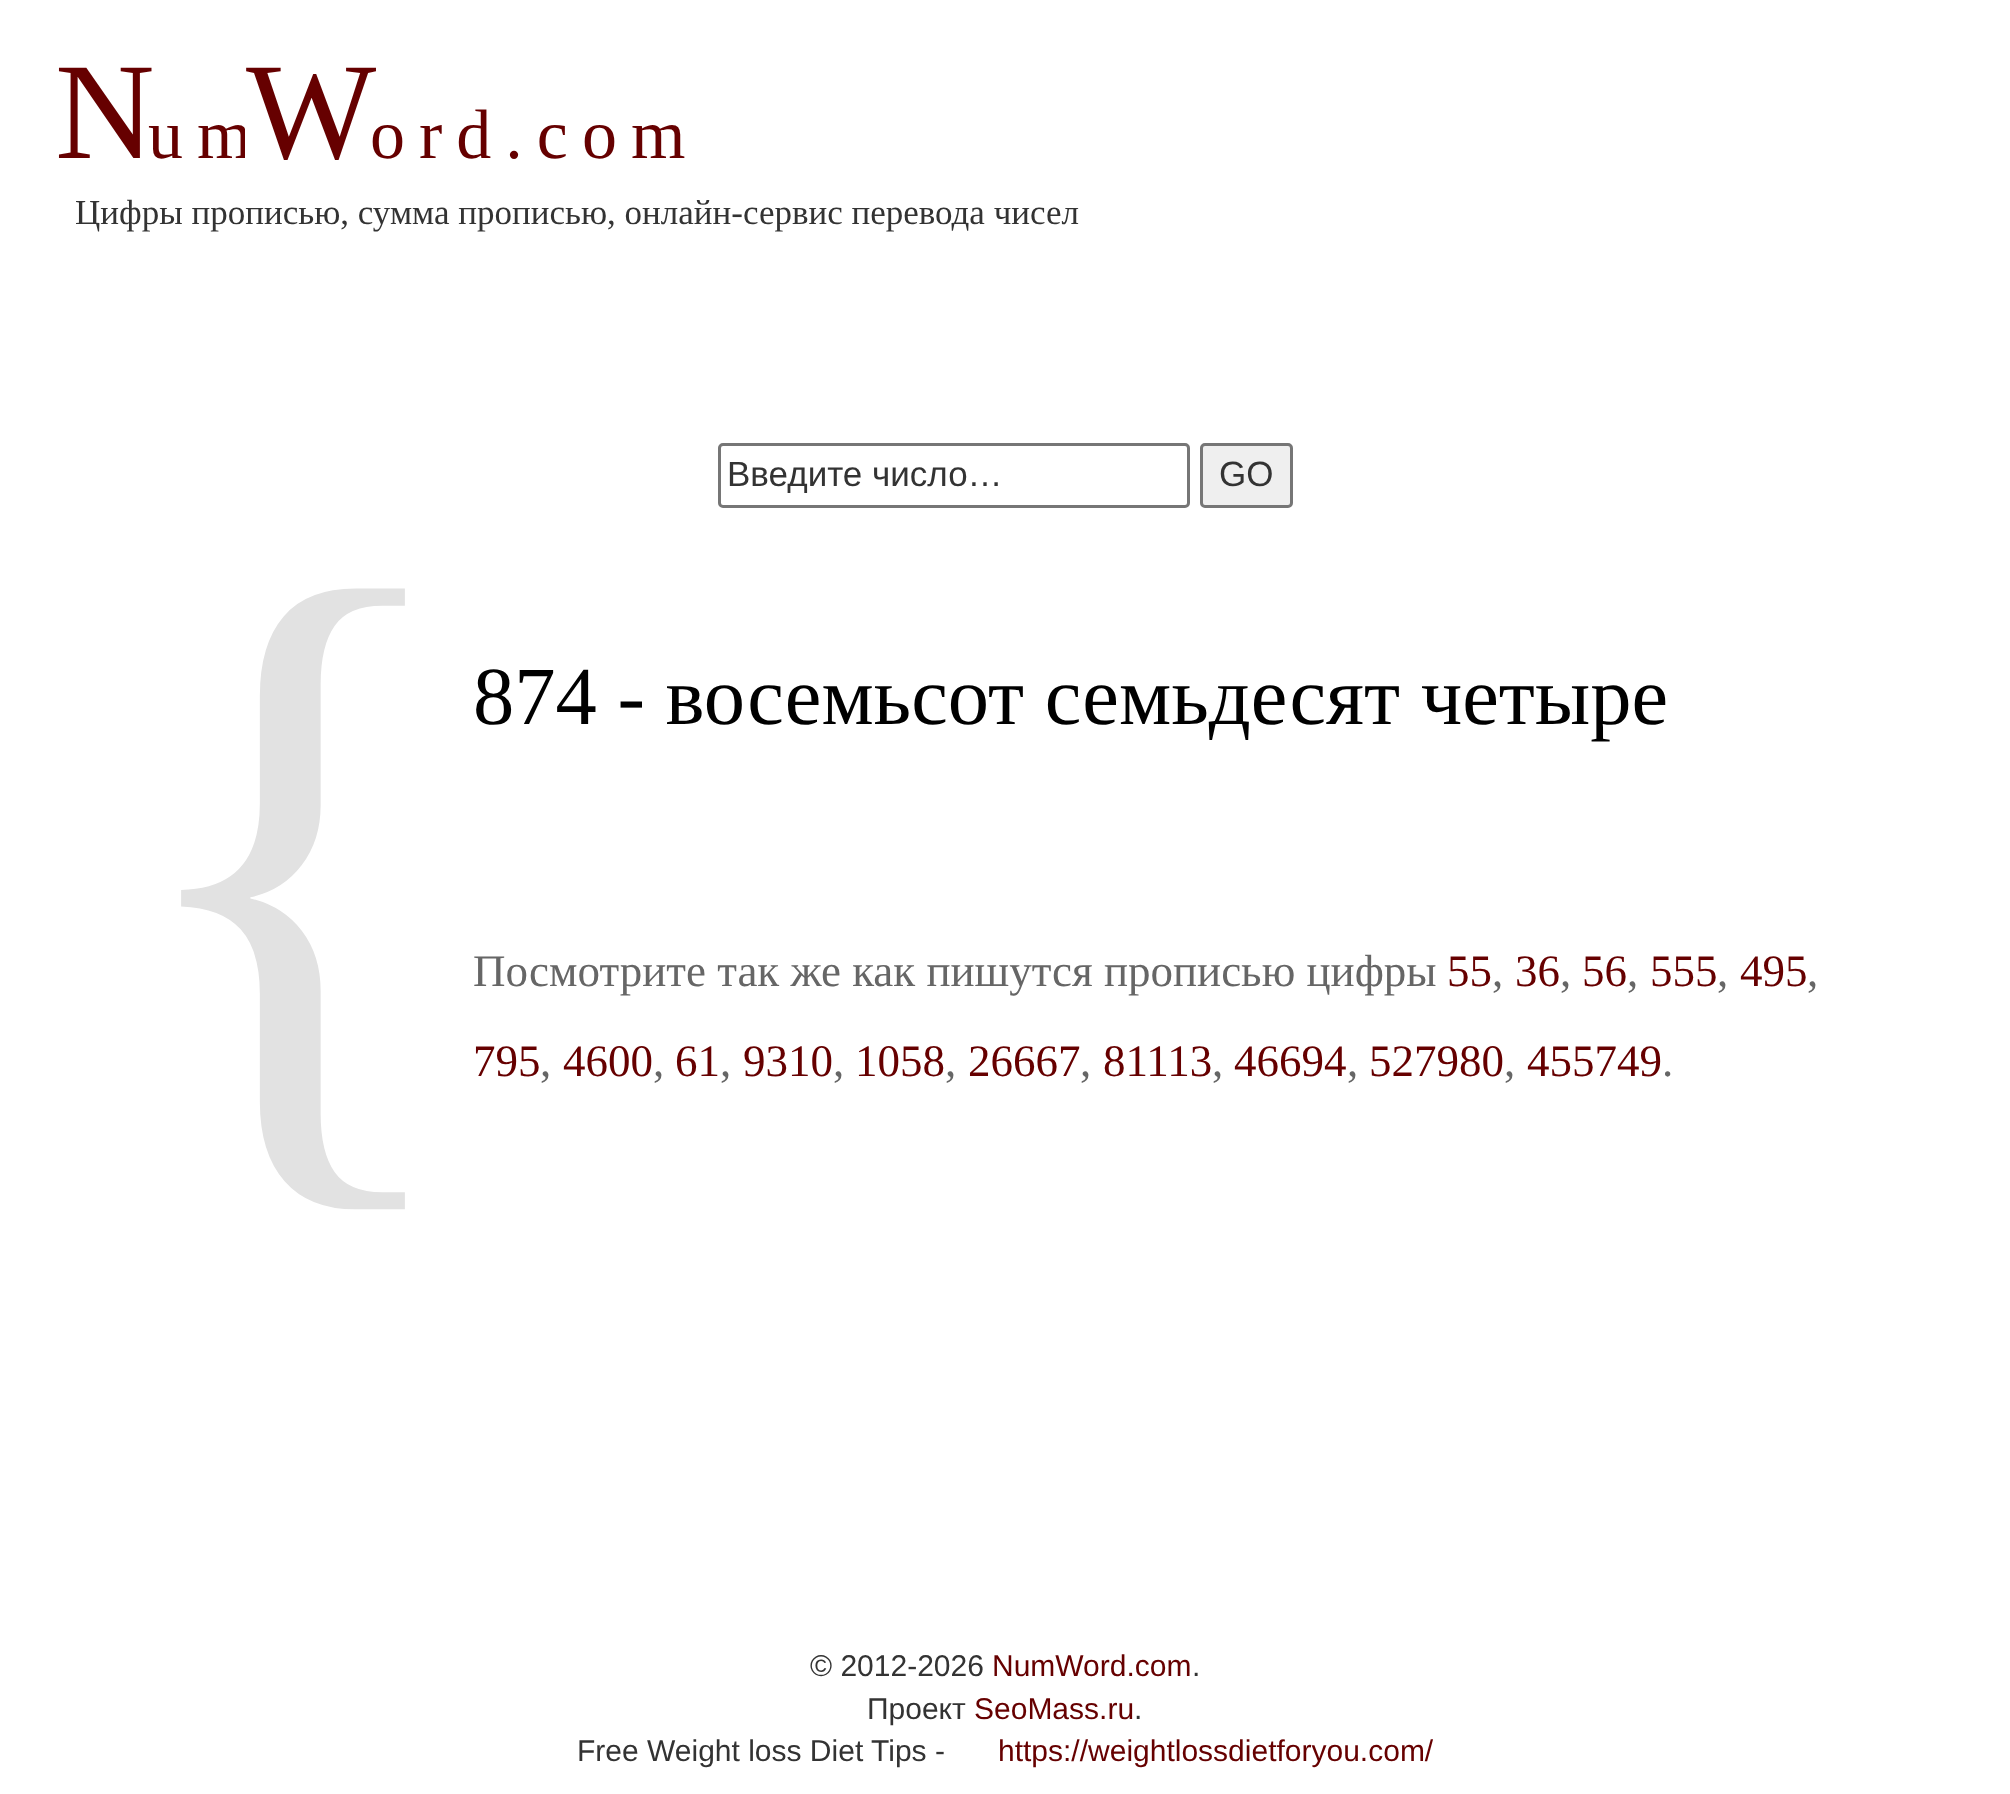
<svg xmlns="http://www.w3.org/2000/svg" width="2010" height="1794">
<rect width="100%" height="100%" fill="#fff"/>
<text x="55" y="158" style="font-family:Liberation Serif;font-size:138px;letter-spacing:14px;fill:#600">N</text>
<text x="148" y="158" style="font-family:Liberation Serif;font-size:70px;letter-spacing:14px;fill:#600">um</text>
<rect x="245" y="128" width="6" height="30" fill="#fff"/>
<text x="246" y="158" style="font-family:Liberation Serif;font-size:138px;letter-spacing:14px;fill:#600">W</text>
<text x="370" y="158" style="font-family:Liberation Serif;font-size:70px;letter-spacing:14px;fill:#600">ord.com</text>
<text x="75" y="224" style="font-family:Liberation Serif;font-size:35px;fill:#333">Цифры прописью, сумма прописью, онлайн-сервис перевода чисел</text>
<rect x="719.5" y="444.5" width="469" height="62" rx="3.5" fill="none" stroke="#767676" stroke-width="3"/>
<text x="727" y="486" style="font-family:Liberation Sans;font-size:35px;fill:#333">Введите число…</text>
<rect x="1201.5" y="444.5" width="90" height="62" rx="3.5" fill="#efefef" stroke="#767676" stroke-width="3"/>
<text x="1219" y="486" style="font-family:Liberation Sans;font-size:35px;fill:#333">GO</text>
<text x="113" y="1109" style="font-family:Liberation Serif;font-size:750px;fill:#e2e2e2">{</text>
<text x="473" y="724" style="font-family:Liberation Serif;font-size:82.5px;fill:#000">874 - восемьсот семьдесят четыре</text>
<text x="473" y="986" style="font-family:Liberation Serif;font-size:45px;fill:#666">Посмотрите так же как пишутся прописью цифры</text>
<text x="1447" y="986" style="font-family:Liberation Serif;font-size:45px;fill:#600">55</text>
<text x="1492" y="986" style="font-family:Liberation Serif;font-size:45px;fill:#666">,</text>
<text x="1515" y="986" style="font-family:Liberation Serif;font-size:45px;fill:#600">36</text>
<text x="1560" y="986" style="font-family:Liberation Serif;font-size:45px;fill:#666">,</text>
<text x="1582" y="986" style="font-family:Liberation Serif;font-size:45px;fill:#600">56</text>
<text x="1627" y="986" style="font-family:Liberation Serif;font-size:45px;fill:#666">,</text>
<text x="1650" y="986" style="font-family:Liberation Serif;font-size:45px;fill:#600">555</text>
<text x="1717" y="986" style="font-family:Liberation Serif;font-size:45px;fill:#666">,</text>
<text x="1740" y="986" style="font-family:Liberation Serif;font-size:45px;fill:#600">495</text>
<text x="1807" y="986" style="font-family:Liberation Serif;font-size:45px;fill:#666">,</text>
<text x="473" y="1076" style="font-family:Liberation Serif;font-size:45px;fill:#600">795</text>
<text x="540" y="1076" style="font-family:Liberation Serif;font-size:45px;fill:#666">,</text>
<text x="563" y="1076" style="font-family:Liberation Serif;font-size:45px;fill:#600">4600</text>
<text x="653" y="1076" style="font-family:Liberation Serif;font-size:45px;fill:#666">,</text>
<text x="675" y="1076" style="font-family:Liberation Serif;font-size:45px;fill:#600">61</text>
<text x="720" y="1076" style="font-family:Liberation Serif;font-size:45px;fill:#666">,</text>
<text x="743" y="1076" style="font-family:Liberation Serif;font-size:45px;fill:#600">9310</text>
<text x="833" y="1076" style="font-family:Liberation Serif;font-size:45px;fill:#666">,</text>
<text x="855" y="1076" style="font-family:Liberation Serif;font-size:45px;fill:#600">1058</text>
<text x="945" y="1076" style="font-family:Liberation Serif;font-size:45px;fill:#666">,</text>
<text x="968" y="1076" style="font-family:Liberation Serif;font-size:45px;fill:#600">26667</text>
<text x="1080" y="1076" style="font-family:Liberation Serif;font-size:45px;fill:#666">,</text>
<text x="1103" y="1076" style="font-family:Liberation Serif;font-size:45px;fill:#600">81113</text>
<text x="1212" y="1076" style="font-family:Liberation Serif;font-size:45px;fill:#666">,</text>
<text x="1234" y="1076" style="font-family:Liberation Serif;font-size:45px;fill:#600">46694</text>
<text x="1347" y="1076" style="font-family:Liberation Serif;font-size:45px;fill:#666">,</text>
<text x="1369" y="1076" style="font-family:Liberation Serif;font-size:45px;fill:#600">527980</text>
<text x="1504" y="1076" style="font-family:Liberation Serif;font-size:45px;fill:#666">,</text>
<text x="1527" y="1076" style="font-family:Liberation Serif;font-size:45px;fill:#600">455749</text>
<text x="1662" y="1076" style="font-family:Liberation Serif;font-size:45px;fill:#666">.</text>
<text x="810" y="1676" style="font-family:Liberation Sans;font-size:30px;fill:#333">© 2012-2026</text>
<text x="992" y="1676" style="font-family:Liberation Sans;font-size:30px;fill:#600">NumWord.com</text>
<text x="1192" y="1676" style="font-family:Liberation Sans;font-size:30px;fill:#333">.</text>
<text x="867" y="1719" style="font-family:Liberation Sans;font-size:30px;fill:#333">Проект</text>
<text x="974" y="1719" style="font-family:Liberation Sans;font-size:30px;fill:#600">SeoMass.ru</text>
<text x="1134" y="1719" style="font-family:Liberation Sans;font-size:30px;fill:#333">.</text>
<text x="577" y="1761" style="font-family:Liberation Sans;font-size:30px;fill:#333">Free Weight loss Diet Tips -</text>
<text x="998" y="1761" style="font-family:Liberation Sans;font-size:30px;fill:#600">https://weightlossdietforyou.com/</text>
</svg>
